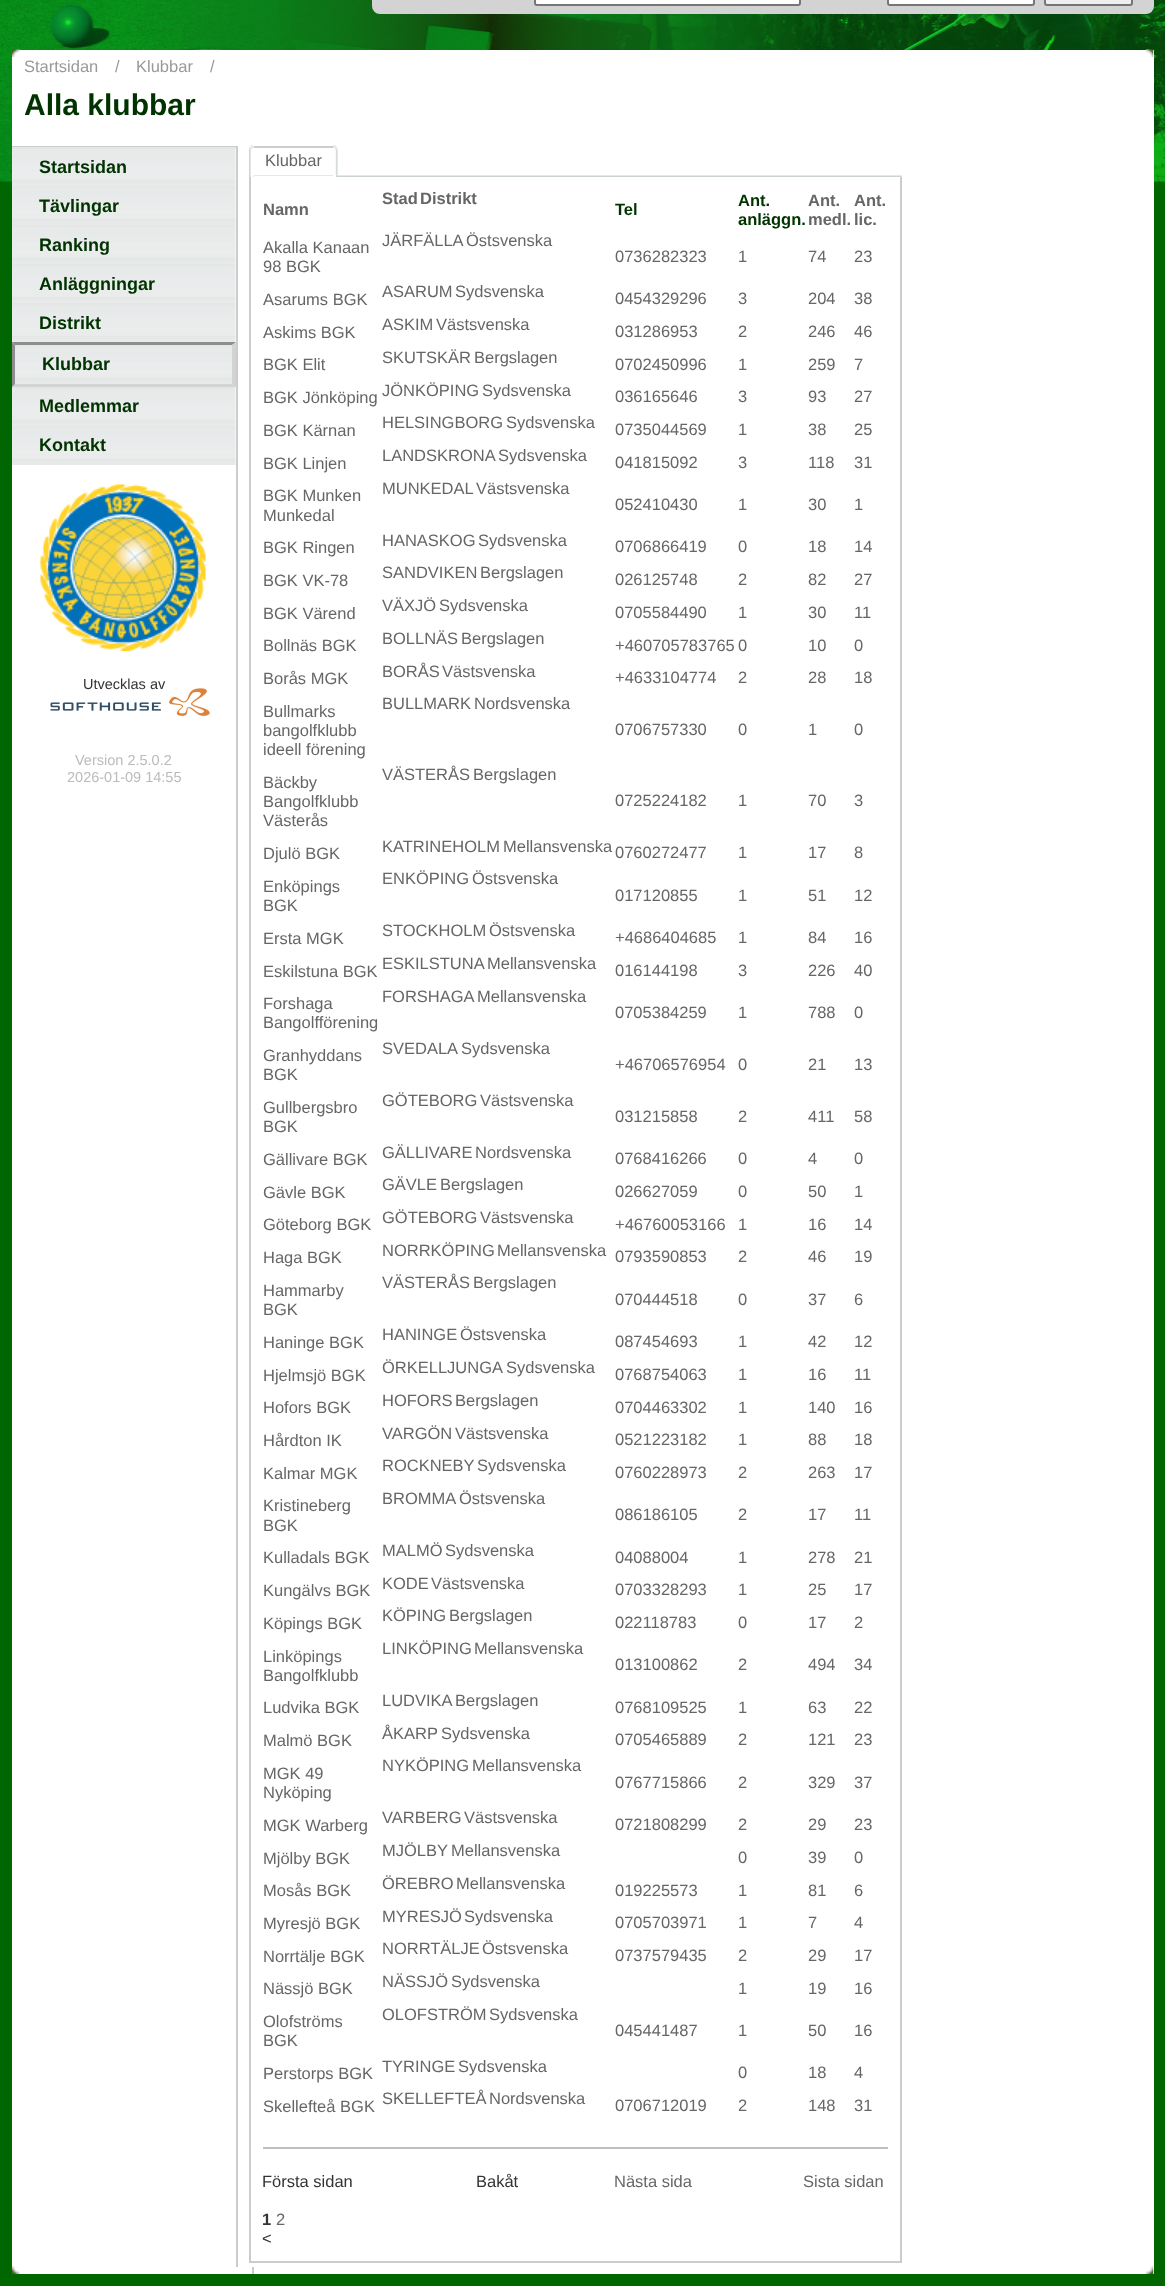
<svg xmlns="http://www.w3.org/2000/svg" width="1165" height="2286">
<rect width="100%" height="100%" fill="#060"/>
<image x="0" y="0" width="1165" height="182" href="media/1.png"/>
<rect x="372" y="-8" width="782" height="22" rx="8" fill="#d3d3d3"/>
<rect x="535" y="-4" width="265" height="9" rx="2" fill="#fff" stroke="#767676" stroke-width="2"/>
<rect x="888" y="-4" width="146" height="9" rx="2" fill="#fff" stroke="#767676" stroke-width="2"/>
<rect x="1045" y="-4" width="87" height="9" rx="2" fill="#efefef" stroke="#767676" stroke-width="2"/>
<rect x="12" y="50" width="1142" height="2224" fill="#fff"/>
<image x="12" y="49" width="8" height="8" href="media/2.png"/>
<image x="1146" y="49" width="8" height="8" href="media/3.png"/>
<text x="24" y="72" style="font-family:Liberation Sans;font-size:16.5px;fill:#999">Startsidan</text>
<text x="115" y="72" style="font-family:Liberation Sans;font-size:16.5px;fill:#999">/</text>
<text x="136" y="72" style="font-family:Liberation Sans;font-size:16.5px;fill:#999">Klubbar</text>
<text x="210" y="72" style="font-family:Liberation Sans;font-size:16.5px;fill:#999">/</text>
<text x="24" y="115" style="font-family:Liberation Sans;font-size:30px;font-weight:bold;fill:#030">Alla klubbar</text>
<rect x="12" y="146" width="224" height="2" fill="#ccc"/>
<image x="12" y="147" width="224" height="39" href="media/4.png"/>
<text x="39" y="173" style="font-family:Liberation Sans;font-size:18px;font-weight:bold;fill:#030">Startsidan</text>
<image x="12" y="186" width="224" height="39" href="media/5.png"/>
<text x="39" y="212" style="font-family:Liberation Sans;font-size:18px;font-weight:bold;fill:#030">Tävlingar</text>
<image x="12" y="225" width="224" height="39" href="media/6.png"/>
<text x="39" y="251" style="font-family:Liberation Sans;font-size:18px;font-weight:bold;fill:#030">Ranking</text>
<image x="12" y="264" width="224" height="39" href="media/6.png"/>
<text x="39" y="290" style="font-family:Liberation Sans;font-size:18px;font-weight:bold;fill:#030">Anläggningar</text>
<image x="12" y="303" width="224" height="39" href="media/5.png"/>
<text x="39" y="329" style="font-family:Liberation Sans;font-size:18px;font-weight:bold;fill:#030">Distrikt</text>
<image x="12" y="342" width="224" height="45" href="media/7.png"/>
<path d="M12 342h224l-4 3h-217z" fill="#8d8d8d"/>
<path d="M236 342v45l-4-3v-39z" fill="#d3d3d3"/>
<path d="M236 387h-224l3-3h217z" fill="#d3d3d3"/>
<path d="M12 387v-45l3 3v39z" fill="#8d8d8d"/>
<text x="42" y="370" style="font-family:Liberation Sans;font-size:18px;font-weight:bold;fill:#030">Klubbar</text>
<image x="12" y="387" width="224" height="39" href="media/5.png"/>
<text x="39" y="412" style="font-family:Liberation Sans;font-size:18px;font-weight:bold;fill:#030">Medlemmar</text>
<image x="12" y="426" width="224" height="39" href="media/6.png"/>
<text x="39" y="451" style="font-family:Liberation Sans;font-size:18px;font-weight:bold;fill:#030">Kontakt</text>
<image x="40" y="484" width="166" height="167" href="media/8.png"/>
<text x="83" y="689" style="font-family:Liberation Sans;font-size:14.5px;fill:#333">Utvecklas av</text>
<image x="50" y="688" width="160" height="28" href="media/9.png"/>
<text x="75" y="765" style="font-family:Liberation Sans;font-size:14.5px;fill:#bbb">Version 2.5.0.2</text>
<text x="67" y="782" style="font-family:Liberation Sans;font-size:14.5px;fill:#bbb">2026-01-09 14:55</text>
<rect x="236" y="146" width="2" height="2121" fill="#ccc"/>
<image x="253" y="175" width="649" height="2" href="media/10.png"/>
<image x="249" y="145" width="5" height="32" href="media/11.png"/>
<rect x="254" y="146" width="79" height="2" fill="#ccc"/>
<text x="265" y="166" style="font-family:Liberation Sans;font-size:16.5px;fill:#666">Klubbar</text>
<rect x="254" y="176" width="79" height="1" fill="#fff"/>
<image x="333" y="145" width="5" height="32" href="media/12.png"/>
<rect x="249" y="177" width="2" height="2084" fill="#ccc"/>
<text x="263" y="215" style="font-family:Liberation Sans;font-size:16.5px;font-weight:bold;fill:#666">Namn</text>
<text x="382" y="204" style="font-family:Liberation Sans;font-size:16.5px;font-weight:bold;fill:#666">Stad</text>
<text x="420" y="204" style="font-family:Liberation Sans;font-size:16.5px;font-weight:bold;fill:#666">Distrikt</text>
<text x="615" y="215" style="font-family:Liberation Sans;font-size:16.5px;font-weight:bold;fill:#030">Tel</text>
<text x="738" y="206" style="font-family:Liberation Sans;font-size:16.5px;font-weight:bold;fill:#030">Ant.</text>
<text x="738" y="225" style="font-family:Liberation Sans;font-size:16.5px;font-weight:bold;fill:#030">anläggn.</text>
<text x="808" y="206" style="font-family:Liberation Sans;font-size:16.5px;font-weight:bold;fill:#666">Ant.</text>
<text x="808" y="225" style="font-family:Liberation Sans;font-size:16.5px;font-weight:bold;fill:#666">medl.</text>
<text x="854" y="206" style="font-family:Liberation Sans;font-size:16.5px;font-weight:bold;fill:#666">Ant.</text>
<text x="854" y="225" style="font-family:Liberation Sans;font-size:16.5px;font-weight:bold;fill:#666">lic.</text>
<text x="382" y="246" style="font-family:Liberation Sans;font-size:16.5px;fill:#666">JÄRFÄLLA</text>
<text x="466" y="246" style="font-family:Liberation Sans;font-size:16.5px;fill:#666">Östsvenska</text>
<text x="263" y="253" style="font-family:Liberation Sans;font-size:16.5px;fill:#666">Akalla Kanaan</text>
<text x="263" y="272" style="font-family:Liberation Sans;font-size:16.5px;fill:#666">98 BGK</text>
<text x="615" y="262" style="font-family:Liberation Sans;font-size:16.5px;fill:#666">0736282323</text>
<text x="738" y="262" style="font-family:Liberation Sans;font-size:16.5px;fill:#666">1</text>
<text x="808" y="262" style="font-family:Liberation Sans;font-size:16.5px;fill:#666">74</text>
<text x="854" y="262" style="font-family:Liberation Sans;font-size:16.5px;fill:#666">23</text>
<text x="263" y="305" style="font-family:Liberation Sans;font-size:16.5px;fill:#666">Asarums BGK</text>
<text x="382" y="297" style="font-family:Liberation Sans;font-size:16.5px;fill:#666">ASARUM</text>
<text x="455" y="297" style="font-family:Liberation Sans;font-size:16.5px;fill:#666">Sydsvenska</text>
<text x="615" y="304" style="font-family:Liberation Sans;font-size:16.5px;fill:#666">0454329296</text>
<text x="738" y="304" style="font-family:Liberation Sans;font-size:16.5px;fill:#666">3</text>
<text x="808" y="304" style="font-family:Liberation Sans;font-size:16.5px;fill:#666">204</text>
<text x="854" y="304" style="font-family:Liberation Sans;font-size:16.5px;fill:#666">38</text>
<text x="263" y="338" style="font-family:Liberation Sans;font-size:16.5px;fill:#666">Askims BGK</text>
<text x="382" y="330" style="font-family:Liberation Sans;font-size:16.5px;fill:#666">ASKIM</text>
<text x="436" y="330" style="font-family:Liberation Sans;font-size:16.5px;fill:#666">Västsvenska</text>
<text x="615" y="337" style="font-family:Liberation Sans;font-size:16.5px;fill:#666">031286953</text>
<text x="738" y="337" style="font-family:Liberation Sans;font-size:16.5px;fill:#666">2</text>
<text x="808" y="337" style="font-family:Liberation Sans;font-size:16.5px;fill:#666">246</text>
<text x="854" y="337" style="font-family:Liberation Sans;font-size:16.5px;fill:#666">46</text>
<text x="263" y="370" style="font-family:Liberation Sans;font-size:16.5px;fill:#666">BGK Elit</text>
<text x="382" y="363" style="font-family:Liberation Sans;font-size:16.5px;fill:#666">SKUTSKÄR</text>
<text x="474" y="363" style="font-family:Liberation Sans;font-size:16.5px;fill:#666">Bergslagen</text>
<text x="615" y="370" style="font-family:Liberation Sans;font-size:16.5px;fill:#666">0702450996</text>
<text x="738" y="370" style="font-family:Liberation Sans;font-size:16.5px;fill:#666">1</text>
<text x="808" y="370" style="font-family:Liberation Sans;font-size:16.5px;fill:#666">259</text>
<text x="854" y="370" style="font-family:Liberation Sans;font-size:16.5px;fill:#666">7</text>
<text x="263" y="403" style="font-family:Liberation Sans;font-size:16.5px;fill:#666">BGK Jönköping</text>
<text x="382" y="396" style="font-family:Liberation Sans;font-size:16.5px;fill:#666">JÖNKÖPING</text>
<text x="482" y="396" style="font-family:Liberation Sans;font-size:16.5px;fill:#666">Sydsvenska</text>
<text x="615" y="402" style="font-family:Liberation Sans;font-size:16.5px;fill:#666">036165646</text>
<text x="738" y="402" style="font-family:Liberation Sans;font-size:16.5px;fill:#666">3</text>
<text x="808" y="402" style="font-family:Liberation Sans;font-size:16.5px;fill:#666">93</text>
<text x="854" y="402" style="font-family:Liberation Sans;font-size:16.5px;fill:#666">27</text>
<text x="263" y="436" style="font-family:Liberation Sans;font-size:16.5px;fill:#666">BGK Kärnan</text>
<text x="382" y="428" style="font-family:Liberation Sans;font-size:16.5px;fill:#666">HELSINGBORG</text>
<text x="506" y="428" style="font-family:Liberation Sans;font-size:16.5px;fill:#666">Sydsvenska</text>
<text x="615" y="435" style="font-family:Liberation Sans;font-size:16.5px;fill:#666">0735044569</text>
<text x="738" y="435" style="font-family:Liberation Sans;font-size:16.5px;fill:#666">1</text>
<text x="808" y="435" style="font-family:Liberation Sans;font-size:16.5px;fill:#666">38</text>
<text x="854" y="435" style="font-family:Liberation Sans;font-size:16.5px;fill:#666">25</text>
<text x="263" y="469" style="font-family:Liberation Sans;font-size:16.5px;fill:#666">BGK Linjen</text>
<text x="382" y="461" style="font-family:Liberation Sans;font-size:16.5px;fill:#666">LANDSKRONA</text>
<text x="498" y="461" style="font-family:Liberation Sans;font-size:16.5px;fill:#666">Sydsvenska</text>
<text x="615" y="468" style="font-family:Liberation Sans;font-size:16.5px;fill:#666">041815092</text>
<text x="738" y="468" style="font-family:Liberation Sans;font-size:16.5px;fill:#666">3</text>
<text x="808" y="468" style="font-family:Liberation Sans;font-size:16.5px;fill:#666">118</text>
<text x="854" y="468" style="font-family:Liberation Sans;font-size:16.5px;fill:#666">31</text>
<text x="263" y="501" style="font-family:Liberation Sans;font-size:16.5px;fill:#666">BGK Munken</text>
<text x="263" y="521" style="font-family:Liberation Sans;font-size:16.5px;fill:#666">Munkedal</text>
<text x="382" y="494" style="font-family:Liberation Sans;font-size:16.5px;fill:#666">MUNKEDAL</text>
<text x="476" y="494" style="font-family:Liberation Sans;font-size:16.5px;fill:#666">Västsvenska</text>
<text x="615" y="510" style="font-family:Liberation Sans;font-size:16.5px;fill:#666">052410430</text>
<text x="738" y="510" style="font-family:Liberation Sans;font-size:16.5px;fill:#666">1</text>
<text x="808" y="510" style="font-family:Liberation Sans;font-size:16.5px;fill:#666">30</text>
<text x="854" y="510" style="font-family:Liberation Sans;font-size:16.5px;fill:#666">1</text>
<text x="263" y="553" style="font-family:Liberation Sans;font-size:16.5px;fill:#666">BGK Ringen</text>
<text x="382" y="546" style="font-family:Liberation Sans;font-size:16.5px;fill:#666">HANASKOG</text>
<text x="478" y="546" style="font-family:Liberation Sans;font-size:16.5px;fill:#666">Sydsvenska</text>
<text x="615" y="552" style="font-family:Liberation Sans;font-size:16.5px;fill:#666">0706866419</text>
<text x="738" y="552" style="font-family:Liberation Sans;font-size:16.5px;fill:#666">0</text>
<text x="808" y="552" style="font-family:Liberation Sans;font-size:16.5px;fill:#666">18</text>
<text x="854" y="552" style="font-family:Liberation Sans;font-size:16.5px;fill:#666">14</text>
<text x="263" y="586" style="font-family:Liberation Sans;font-size:16.5px;fill:#666">BGK VK-78</text>
<text x="382" y="578" style="font-family:Liberation Sans;font-size:16.5px;fill:#666">SANDVIKEN</text>
<text x="480" y="578" style="font-family:Liberation Sans;font-size:16.5px;fill:#666">Bergslagen</text>
<text x="615" y="585" style="font-family:Liberation Sans;font-size:16.5px;fill:#666">026125748</text>
<text x="738" y="585" style="font-family:Liberation Sans;font-size:16.5px;fill:#666">2</text>
<text x="808" y="585" style="font-family:Liberation Sans;font-size:16.5px;fill:#666">82</text>
<text x="854" y="585" style="font-family:Liberation Sans;font-size:16.5px;fill:#666">27</text>
<text x="263" y="619" style="font-family:Liberation Sans;font-size:16.5px;fill:#666">BGK Värend</text>
<text x="382" y="611" style="font-family:Liberation Sans;font-size:16.5px;fill:#666">VÄXJÖ</text>
<text x="439" y="611" style="font-family:Liberation Sans;font-size:16.5px;fill:#666">Sydsvenska</text>
<text x="615" y="618" style="font-family:Liberation Sans;font-size:16.5px;fill:#666">0705584490</text>
<text x="738" y="618" style="font-family:Liberation Sans;font-size:16.5px;fill:#666">1</text>
<text x="808" y="618" style="font-family:Liberation Sans;font-size:16.5px;fill:#666">30</text>
<text x="854" y="618" style="font-family:Liberation Sans;font-size:16.5px;fill:#666">11</text>
<text x="263" y="651" style="font-family:Liberation Sans;font-size:16.5px;fill:#666">Bollnäs BGK</text>
<text x="382" y="644" style="font-family:Liberation Sans;font-size:16.5px;fill:#666">BOLLNÄS</text>
<text x="461" y="644" style="font-family:Liberation Sans;font-size:16.5px;fill:#666">Bergslagen</text>
<text x="615" y="651" style="font-family:Liberation Sans;font-size:16.5px;fill:#666">+460705783765</text>
<text x="738" y="651" style="font-family:Liberation Sans;font-size:16.5px;fill:#666">0</text>
<text x="808" y="651" style="font-family:Liberation Sans;font-size:16.5px;fill:#666">10</text>
<text x="854" y="651" style="font-family:Liberation Sans;font-size:16.5px;fill:#666">0</text>
<text x="263" y="684" style="font-family:Liberation Sans;font-size:16.5px;fill:#666">Borås MGK</text>
<text x="382" y="677" style="font-family:Liberation Sans;font-size:16.5px;fill:#666">BORÅS</text>
<text x="442" y="677" style="font-family:Liberation Sans;font-size:16.5px;fill:#666">Västsvenska</text>
<text x="615" y="683" style="font-family:Liberation Sans;font-size:16.5px;fill:#666">+4633104774</text>
<text x="738" y="683" style="font-family:Liberation Sans;font-size:16.5px;fill:#666">2</text>
<text x="808" y="683" style="font-family:Liberation Sans;font-size:16.5px;fill:#666">28</text>
<text x="854" y="683" style="font-family:Liberation Sans;font-size:16.5px;fill:#666">18</text>
<text x="382" y="709" style="font-family:Liberation Sans;font-size:16.5px;fill:#666">BULLMARK</text>
<text x="474" y="709" style="font-family:Liberation Sans;font-size:16.5px;fill:#666">Nordsvenska</text>
<text x="263" y="717" style="font-family:Liberation Sans;font-size:16.5px;fill:#666">Bullmarks</text>
<text x="263" y="736" style="font-family:Liberation Sans;font-size:16.5px;fill:#666">bangolfklubb</text>
<text x="263" y="755" style="font-family:Liberation Sans;font-size:16.5px;fill:#666">ideell förening</text>
<text x="615" y="735" style="font-family:Liberation Sans;font-size:16.5px;fill:#666">0706757330</text>
<text x="738" y="735" style="font-family:Liberation Sans;font-size:16.5px;fill:#666">0</text>
<text x="808" y="735" style="font-family:Liberation Sans;font-size:16.5px;fill:#666">1</text>
<text x="854" y="735" style="font-family:Liberation Sans;font-size:16.5px;fill:#666">0</text>
<text x="263" y="788" style="font-family:Liberation Sans;font-size:16.5px;fill:#666">Bäckby</text>
<text x="263" y="807" style="font-family:Liberation Sans;font-size:16.5px;fill:#666">Bangolfklubb</text>
<text x="263" y="826" style="font-family:Liberation Sans;font-size:16.5px;fill:#666">Västerås</text>
<text x="382" y="780" style="font-family:Liberation Sans;font-size:16.5px;fill:#666">VÄSTERÅS</text>
<text x="473" y="780" style="font-family:Liberation Sans;font-size:16.5px;fill:#666">Bergslagen</text>
<text x="615" y="806" style="font-family:Liberation Sans;font-size:16.5px;fill:#666">0725224182</text>
<text x="738" y="806" style="font-family:Liberation Sans;font-size:16.5px;fill:#666">1</text>
<text x="808" y="806" style="font-family:Liberation Sans;font-size:16.5px;fill:#666">70</text>
<text x="854" y="806" style="font-family:Liberation Sans;font-size:16.5px;fill:#666">3</text>
<text x="263" y="859" style="font-family:Liberation Sans;font-size:16.5px;fill:#666">Djulö BGK</text>
<text x="382" y="852" style="font-family:Liberation Sans;font-size:16.5px;fill:#666">KATRINEHOLM</text>
<text x="503" y="852" style="font-family:Liberation Sans;font-size:16.5px;fill:#666">Mellansvenska</text>
<text x="615" y="858" style="font-family:Liberation Sans;font-size:16.5px;fill:#666">0760272477</text>
<text x="738" y="858" style="font-family:Liberation Sans;font-size:16.5px;fill:#666">1</text>
<text x="808" y="858" style="font-family:Liberation Sans;font-size:16.5px;fill:#666">17</text>
<text x="854" y="858" style="font-family:Liberation Sans;font-size:16.5px;fill:#666">8</text>
<text x="382" y="884" style="font-family:Liberation Sans;font-size:16.5px;fill:#666">ENKÖPING</text>
<text x="472" y="884" style="font-family:Liberation Sans;font-size:16.5px;fill:#666">Östsvenska</text>
<text x="263" y="892" style="font-family:Liberation Sans;font-size:16.5px;fill:#666">Enköpings</text>
<text x="263" y="911" style="font-family:Liberation Sans;font-size:16.5px;fill:#666">BGK</text>
<text x="615" y="901" style="font-family:Liberation Sans;font-size:16.5px;fill:#666">017120855</text>
<text x="738" y="901" style="font-family:Liberation Sans;font-size:16.5px;fill:#666">1</text>
<text x="808" y="901" style="font-family:Liberation Sans;font-size:16.5px;fill:#666">51</text>
<text x="854" y="901" style="font-family:Liberation Sans;font-size:16.5px;fill:#666">12</text>
<text x="263" y="944" style="font-family:Liberation Sans;font-size:16.5px;fill:#666">Ersta MGK</text>
<text x="382" y="936" style="font-family:Liberation Sans;font-size:16.5px;fill:#666">STOCKHOLM</text>
<text x="489" y="936" style="font-family:Liberation Sans;font-size:16.5px;fill:#666">Östsvenska</text>
<text x="615" y="943" style="font-family:Liberation Sans;font-size:16.5px;fill:#666">+4686404685</text>
<text x="738" y="943" style="font-family:Liberation Sans;font-size:16.5px;fill:#666">1</text>
<text x="808" y="943" style="font-family:Liberation Sans;font-size:16.5px;fill:#666">84</text>
<text x="854" y="943" style="font-family:Liberation Sans;font-size:16.5px;fill:#666">16</text>
<text x="263" y="977" style="font-family:Liberation Sans;font-size:16.5px;fill:#666">Eskilstuna BGK</text>
<text x="382" y="969" style="font-family:Liberation Sans;font-size:16.5px;fill:#666">ESKILSTUNA</text>
<text x="487" y="969" style="font-family:Liberation Sans;font-size:16.5px;fill:#666">Mellansvenska</text>
<text x="615" y="976" style="font-family:Liberation Sans;font-size:16.5px;fill:#666">016144198</text>
<text x="738" y="976" style="font-family:Liberation Sans;font-size:16.5px;fill:#666">3</text>
<text x="808" y="976" style="font-family:Liberation Sans;font-size:16.5px;fill:#666">226</text>
<text x="854" y="976" style="font-family:Liberation Sans;font-size:16.5px;fill:#666">40</text>
<text x="263" y="1009" style="font-family:Liberation Sans;font-size:16.5px;fill:#666">Forshaga</text>
<text x="263" y="1028" style="font-family:Liberation Sans;font-size:16.5px;fill:#666">Bangolfförening</text>
<text x="382" y="1002" style="font-family:Liberation Sans;font-size:16.5px;fill:#666">FORSHAGA</text>
<text x="477" y="1002" style="font-family:Liberation Sans;font-size:16.5px;fill:#666">Mellansvenska</text>
<text x="615" y="1018" style="font-family:Liberation Sans;font-size:16.5px;fill:#666">0705384259</text>
<text x="738" y="1018" style="font-family:Liberation Sans;font-size:16.5px;fill:#666">1</text>
<text x="808" y="1018" style="font-family:Liberation Sans;font-size:16.5px;fill:#666">788</text>
<text x="854" y="1018" style="font-family:Liberation Sans;font-size:16.5px;fill:#666">0</text>
<text x="263" y="1061" style="font-family:Liberation Sans;font-size:16.5px;fill:#666">Granhyddans</text>
<text x="263" y="1080" style="font-family:Liberation Sans;font-size:16.5px;fill:#666">BGK</text>
<text x="382" y="1054" style="font-family:Liberation Sans;font-size:16.5px;fill:#666">SVEDALA</text>
<text x="461" y="1054" style="font-family:Liberation Sans;font-size:16.5px;fill:#666">Sydsvenska</text>
<text x="615" y="1070" style="font-family:Liberation Sans;font-size:16.5px;fill:#666">+46706576954</text>
<text x="738" y="1070" style="font-family:Liberation Sans;font-size:16.5px;fill:#666">0</text>
<text x="808" y="1070" style="font-family:Liberation Sans;font-size:16.5px;fill:#666">21</text>
<text x="854" y="1070" style="font-family:Liberation Sans;font-size:16.5px;fill:#666">13</text>
<text x="263" y="1113" style="font-family:Liberation Sans;font-size:16.5px;fill:#666">Gullbergsbro</text>
<text x="263" y="1132" style="font-family:Liberation Sans;font-size:16.5px;fill:#666">BGK</text>
<text x="382" y="1106" style="font-family:Liberation Sans;font-size:16.5px;fill:#666">GÖTEBORG</text>
<text x="480" y="1106" style="font-family:Liberation Sans;font-size:16.5px;fill:#666">Västsvenska</text>
<text x="615" y="1122" style="font-family:Liberation Sans;font-size:16.5px;fill:#666">031215858</text>
<text x="738" y="1122" style="font-family:Liberation Sans;font-size:16.5px;fill:#666">2</text>
<text x="808" y="1122" style="font-family:Liberation Sans;font-size:16.5px;fill:#666">411</text>
<text x="854" y="1122" style="font-family:Liberation Sans;font-size:16.5px;fill:#666">58</text>
<text x="263" y="1165" style="font-family:Liberation Sans;font-size:16.5px;fill:#666">Gällivare BGK</text>
<text x="382" y="1158" style="font-family:Liberation Sans;font-size:16.5px;fill:#666">GÄLLIVARE</text>
<text x="475" y="1158" style="font-family:Liberation Sans;font-size:16.5px;fill:#666">Nordsvenska</text>
<text x="615" y="1164" style="font-family:Liberation Sans;font-size:16.5px;fill:#666">0768416266</text>
<text x="738" y="1164" style="font-family:Liberation Sans;font-size:16.5px;fill:#666">0</text>
<text x="808" y="1164" style="font-family:Liberation Sans;font-size:16.5px;fill:#666">4</text>
<text x="854" y="1164" style="font-family:Liberation Sans;font-size:16.5px;fill:#666">0</text>
<text x="263" y="1198" style="font-family:Liberation Sans;font-size:16.5px;fill:#666">Gävle BGK</text>
<text x="382" y="1190" style="font-family:Liberation Sans;font-size:16.5px;fill:#666">GÄVLE</text>
<text x="440" y="1190" style="font-family:Liberation Sans;font-size:16.5px;fill:#666">Bergslagen</text>
<text x="615" y="1197" style="font-family:Liberation Sans;font-size:16.5px;fill:#666">026627059</text>
<text x="738" y="1197" style="font-family:Liberation Sans;font-size:16.5px;fill:#666">0</text>
<text x="808" y="1197" style="font-family:Liberation Sans;font-size:16.5px;fill:#666">50</text>
<text x="854" y="1197" style="font-family:Liberation Sans;font-size:16.5px;fill:#666">1</text>
<text x="263" y="1230" style="font-family:Liberation Sans;font-size:16.5px;fill:#666">Göteborg BGK</text>
<text x="382" y="1223" style="font-family:Liberation Sans;font-size:16.5px;fill:#666">GÖTEBORG</text>
<text x="480" y="1223" style="font-family:Liberation Sans;font-size:16.5px;fill:#666">Västsvenska</text>
<text x="615" y="1230" style="font-family:Liberation Sans;font-size:16.5px;fill:#666">+46760053166</text>
<text x="738" y="1230" style="font-family:Liberation Sans;font-size:16.5px;fill:#666">1</text>
<text x="808" y="1230" style="font-family:Liberation Sans;font-size:16.5px;fill:#666">16</text>
<text x="854" y="1230" style="font-family:Liberation Sans;font-size:16.5px;fill:#666">14</text>
<text x="263" y="1263" style="font-family:Liberation Sans;font-size:16.5px;fill:#666">Haga BGK</text>
<text x="382" y="1256" style="font-family:Liberation Sans;font-size:16.5px;fill:#666">NORRKÖPING</text>
<text x="497" y="1256" style="font-family:Liberation Sans;font-size:16.5px;fill:#666">Mellansvenska</text>
<text x="615" y="1262" style="font-family:Liberation Sans;font-size:16.5px;fill:#666">0793590853</text>
<text x="738" y="1262" style="font-family:Liberation Sans;font-size:16.5px;fill:#666">2</text>
<text x="808" y="1262" style="font-family:Liberation Sans;font-size:16.5px;fill:#666">46</text>
<text x="854" y="1262" style="font-family:Liberation Sans;font-size:16.5px;fill:#666">19</text>
<text x="263" y="1296" style="font-family:Liberation Sans;font-size:16.5px;fill:#666">Hammarby</text>
<text x="263" y="1315" style="font-family:Liberation Sans;font-size:16.5px;fill:#666">BGK</text>
<text x="382" y="1288" style="font-family:Liberation Sans;font-size:16.5px;fill:#666">VÄSTERÅS</text>
<text x="473" y="1288" style="font-family:Liberation Sans;font-size:16.5px;fill:#666">Bergslagen</text>
<text x="615" y="1305" style="font-family:Liberation Sans;font-size:16.5px;fill:#666">070444518</text>
<text x="738" y="1305" style="font-family:Liberation Sans;font-size:16.5px;fill:#666">0</text>
<text x="808" y="1305" style="font-family:Liberation Sans;font-size:16.5px;fill:#666">37</text>
<text x="854" y="1305" style="font-family:Liberation Sans;font-size:16.5px;fill:#666">6</text>
<text x="263" y="1348" style="font-family:Liberation Sans;font-size:16.5px;fill:#666">Haninge BGK</text>
<text x="382" y="1340" style="font-family:Liberation Sans;font-size:16.5px;fill:#666">HANINGE</text>
<text x="460" y="1340" style="font-family:Liberation Sans;font-size:16.5px;fill:#666">Östsvenska</text>
<text x="615" y="1347" style="font-family:Liberation Sans;font-size:16.5px;fill:#666">087454693</text>
<text x="738" y="1347" style="font-family:Liberation Sans;font-size:16.5px;fill:#666">1</text>
<text x="808" y="1347" style="font-family:Liberation Sans;font-size:16.5px;fill:#666">42</text>
<text x="854" y="1347" style="font-family:Liberation Sans;font-size:16.5px;fill:#666">12</text>
<text x="263" y="1381" style="font-family:Liberation Sans;font-size:16.5px;fill:#666">Hjelmsjö BGK</text>
<text x="382" y="1373" style="font-family:Liberation Sans;font-size:16.5px;fill:#666">ÖRKELLJUNGA</text>
<text x="506" y="1373" style="font-family:Liberation Sans;font-size:16.5px;fill:#666">Sydsvenska</text>
<text x="615" y="1380" style="font-family:Liberation Sans;font-size:16.5px;fill:#666">0768754063</text>
<text x="738" y="1380" style="font-family:Liberation Sans;font-size:16.5px;fill:#666">1</text>
<text x="808" y="1380" style="font-family:Liberation Sans;font-size:16.5px;fill:#666">16</text>
<text x="854" y="1380" style="font-family:Liberation Sans;font-size:16.5px;fill:#666">11</text>
<text x="263" y="1413" style="font-family:Liberation Sans;font-size:16.5px;fill:#666">Hofors BGK</text>
<text x="382" y="1406" style="font-family:Liberation Sans;font-size:16.5px;fill:#666">HOFORS</text>
<text x="455" y="1406" style="font-family:Liberation Sans;font-size:16.5px;fill:#666">Bergslagen</text>
<text x="615" y="1413" style="font-family:Liberation Sans;font-size:16.5px;fill:#666">0704463302</text>
<text x="738" y="1413" style="font-family:Liberation Sans;font-size:16.5px;fill:#666">1</text>
<text x="808" y="1413" style="font-family:Liberation Sans;font-size:16.5px;fill:#666">140</text>
<text x="854" y="1413" style="font-family:Liberation Sans;font-size:16.5px;fill:#666">16</text>
<text x="263" y="1446" style="font-family:Liberation Sans;font-size:16.5px;fill:#666">Hårdton IK</text>
<text x="382" y="1439" style="font-family:Liberation Sans;font-size:16.5px;fill:#666">VARGÖN</text>
<text x="455" y="1439" style="font-family:Liberation Sans;font-size:16.5px;fill:#666">Västsvenska</text>
<text x="615" y="1445" style="font-family:Liberation Sans;font-size:16.5px;fill:#666">0521223182</text>
<text x="738" y="1445" style="font-family:Liberation Sans;font-size:16.5px;fill:#666">1</text>
<text x="808" y="1445" style="font-family:Liberation Sans;font-size:16.5px;fill:#666">88</text>
<text x="854" y="1445" style="font-family:Liberation Sans;font-size:16.5px;fill:#666">18</text>
<text x="263" y="1479" style="font-family:Liberation Sans;font-size:16.5px;fill:#666">Kalmar MGK</text>
<text x="382" y="1471" style="font-family:Liberation Sans;font-size:16.5px;fill:#666">ROCKNEBY</text>
<text x="477" y="1471" style="font-family:Liberation Sans;font-size:16.5px;fill:#666">Sydsvenska</text>
<text x="615" y="1478" style="font-family:Liberation Sans;font-size:16.5px;fill:#666">0760228973</text>
<text x="738" y="1478" style="font-family:Liberation Sans;font-size:16.5px;fill:#666">2</text>
<text x="808" y="1478" style="font-family:Liberation Sans;font-size:16.5px;fill:#666">263</text>
<text x="854" y="1478" style="font-family:Liberation Sans;font-size:16.5px;fill:#666">17</text>
<text x="263" y="1511" style="font-family:Liberation Sans;font-size:16.5px;fill:#666">Kristineberg</text>
<text x="263" y="1531" style="font-family:Liberation Sans;font-size:16.5px;fill:#666">BGK</text>
<text x="382" y="1504" style="font-family:Liberation Sans;font-size:16.5px;fill:#666">BROMMA</text>
<text x="459" y="1504" style="font-family:Liberation Sans;font-size:16.5px;fill:#666">Östsvenska</text>
<text x="615" y="1520" style="font-family:Liberation Sans;font-size:16.5px;fill:#666">086186105</text>
<text x="738" y="1520" style="font-family:Liberation Sans;font-size:16.5px;fill:#666">2</text>
<text x="808" y="1520" style="font-family:Liberation Sans;font-size:16.5px;fill:#666">17</text>
<text x="854" y="1520" style="font-family:Liberation Sans;font-size:16.5px;fill:#666">11</text>
<text x="263" y="1563" style="font-family:Liberation Sans;font-size:16.5px;fill:#666">Kulladals BGK</text>
<text x="382" y="1556" style="font-family:Liberation Sans;font-size:16.5px;fill:#666">MALMÖ</text>
<text x="445" y="1556" style="font-family:Liberation Sans;font-size:16.5px;fill:#666">Sydsvenska</text>
<text x="615" y="1563" style="font-family:Liberation Sans;font-size:16.5px;fill:#666">04088004</text>
<text x="738" y="1563" style="font-family:Liberation Sans;font-size:16.5px;fill:#666">1</text>
<text x="808" y="1563" style="font-family:Liberation Sans;font-size:16.5px;fill:#666">278</text>
<text x="854" y="1563" style="font-family:Liberation Sans;font-size:16.5px;fill:#666">21</text>
<text x="263" y="1596" style="font-family:Liberation Sans;font-size:16.5px;fill:#666">Kungälvs BGK</text>
<text x="382" y="1589" style="font-family:Liberation Sans;font-size:16.5px;fill:#666">KODE</text>
<text x="431" y="1589" style="font-family:Liberation Sans;font-size:16.5px;fill:#666">Västsvenska</text>
<text x="615" y="1595" style="font-family:Liberation Sans;font-size:16.5px;fill:#666">0703328293</text>
<text x="738" y="1595" style="font-family:Liberation Sans;font-size:16.5px;fill:#666">1</text>
<text x="808" y="1595" style="font-family:Liberation Sans;font-size:16.5px;fill:#666">25</text>
<text x="854" y="1595" style="font-family:Liberation Sans;font-size:16.5px;fill:#666">17</text>
<text x="263" y="1629" style="font-family:Liberation Sans;font-size:16.5px;fill:#666">Köpings BGK</text>
<text x="382" y="1621" style="font-family:Liberation Sans;font-size:16.5px;fill:#666">KÖPING</text>
<text x="449" y="1621" style="font-family:Liberation Sans;font-size:16.5px;fill:#666">Bergslagen</text>
<text x="615" y="1628" style="font-family:Liberation Sans;font-size:16.5px;fill:#666">022118783</text>
<text x="738" y="1628" style="font-family:Liberation Sans;font-size:16.5px;fill:#666">0</text>
<text x="808" y="1628" style="font-family:Liberation Sans;font-size:16.5px;fill:#666">17</text>
<text x="854" y="1628" style="font-family:Liberation Sans;font-size:16.5px;fill:#666">2</text>
<text x="382" y="1654" style="font-family:Liberation Sans;font-size:16.5px;fill:#666">LINKÖPING</text>
<text x="474" y="1654" style="font-family:Liberation Sans;font-size:16.5px;fill:#666">Mellansvenska</text>
<text x="263" y="1662" style="font-family:Liberation Sans;font-size:16.5px;fill:#666">Linköpings</text>
<text x="263" y="1681" style="font-family:Liberation Sans;font-size:16.5px;fill:#666">Bangolfklubb</text>
<text x="615" y="1670" style="font-family:Liberation Sans;font-size:16.5px;fill:#666">013100862</text>
<text x="738" y="1670" style="font-family:Liberation Sans;font-size:16.5px;fill:#666">2</text>
<text x="808" y="1670" style="font-family:Liberation Sans;font-size:16.5px;fill:#666">494</text>
<text x="854" y="1670" style="font-family:Liberation Sans;font-size:16.5px;fill:#666">34</text>
<text x="263" y="1713" style="font-family:Liberation Sans;font-size:16.5px;fill:#666">Ludvika BGK</text>
<text x="382" y="1706" style="font-family:Liberation Sans;font-size:16.5px;fill:#666">LUDVIKA</text>
<text x="455" y="1706" style="font-family:Liberation Sans;font-size:16.5px;fill:#666">Bergslagen</text>
<text x="615" y="1713" style="font-family:Liberation Sans;font-size:16.5px;fill:#666">0768109525</text>
<text x="738" y="1713" style="font-family:Liberation Sans;font-size:16.5px;fill:#666">1</text>
<text x="808" y="1713" style="font-family:Liberation Sans;font-size:16.5px;fill:#666">63</text>
<text x="854" y="1713" style="font-family:Liberation Sans;font-size:16.5px;fill:#666">22</text>
<text x="263" y="1746" style="font-family:Liberation Sans;font-size:16.5px;fill:#666">Malmö BGK</text>
<text x="382" y="1739" style="font-family:Liberation Sans;font-size:16.5px;fill:#666">ÅKARP</text>
<text x="441" y="1739" style="font-family:Liberation Sans;font-size:16.5px;fill:#666">Sydsvenska</text>
<text x="615" y="1745" style="font-family:Liberation Sans;font-size:16.5px;fill:#666">0705465889</text>
<text x="738" y="1745" style="font-family:Liberation Sans;font-size:16.5px;fill:#666">2</text>
<text x="808" y="1745" style="font-family:Liberation Sans;font-size:16.5px;fill:#666">121</text>
<text x="854" y="1745" style="font-family:Liberation Sans;font-size:16.5px;fill:#666">23</text>
<text x="382" y="1771" style="font-family:Liberation Sans;font-size:16.5px;fill:#666">NYKÖPING</text>
<text x="472" y="1771" style="font-family:Liberation Sans;font-size:16.5px;fill:#666">Mellansvenska</text>
<text x="263" y="1779" style="font-family:Liberation Sans;font-size:16.5px;fill:#666">MGK 49</text>
<text x="263" y="1798" style="font-family:Liberation Sans;font-size:16.5px;fill:#666">Nyköping</text>
<text x="615" y="1788" style="font-family:Liberation Sans;font-size:16.5px;fill:#666">0767715866</text>
<text x="738" y="1788" style="font-family:Liberation Sans;font-size:16.5px;fill:#666">2</text>
<text x="808" y="1788" style="font-family:Liberation Sans;font-size:16.5px;fill:#666">329</text>
<text x="854" y="1788" style="font-family:Liberation Sans;font-size:16.5px;fill:#666">37</text>
<text x="263" y="1831" style="font-family:Liberation Sans;font-size:16.5px;fill:#666">MGK Warberg</text>
<text x="382" y="1823" style="font-family:Liberation Sans;font-size:16.5px;fill:#666">VARBERG</text>
<text x="464" y="1823" style="font-family:Liberation Sans;font-size:16.5px;fill:#666">Västsvenska</text>
<text x="615" y="1830" style="font-family:Liberation Sans;font-size:16.5px;fill:#666">0721808299</text>
<text x="738" y="1830" style="font-family:Liberation Sans;font-size:16.5px;fill:#666">2</text>
<text x="808" y="1830" style="font-family:Liberation Sans;font-size:16.5px;fill:#666">29</text>
<text x="854" y="1830" style="font-family:Liberation Sans;font-size:16.5px;fill:#666">23</text>
<text x="263" y="1864" style="font-family:Liberation Sans;font-size:16.5px;fill:#666">Mjölby BGK</text>
<text x="382" y="1856" style="font-family:Liberation Sans;font-size:16.5px;fill:#666">MJÖLBY</text>
<text x="451" y="1856" style="font-family:Liberation Sans;font-size:16.5px;fill:#666">Mellansvenska</text>
<text x="738" y="1863" style="font-family:Liberation Sans;font-size:16.5px;fill:#666">0</text>
<text x="808" y="1863" style="font-family:Liberation Sans;font-size:16.5px;fill:#666">39</text>
<text x="854" y="1863" style="font-family:Liberation Sans;font-size:16.5px;fill:#666">0</text>
<text x="263" y="1896" style="font-family:Liberation Sans;font-size:16.5px;fill:#666">Mosås BGK</text>
<text x="382" y="1889" style="font-family:Liberation Sans;font-size:16.5px;fill:#666">ÖREBRO</text>
<text x="456" y="1889" style="font-family:Liberation Sans;font-size:16.5px;fill:#666">Mellansvenska</text>
<text x="615" y="1896" style="font-family:Liberation Sans;font-size:16.5px;fill:#666">019225573</text>
<text x="738" y="1896" style="font-family:Liberation Sans;font-size:16.5px;fill:#666">1</text>
<text x="808" y="1896" style="font-family:Liberation Sans;font-size:16.5px;fill:#666">81</text>
<text x="854" y="1896" style="font-family:Liberation Sans;font-size:16.5px;fill:#666">6</text>
<text x="263" y="1929" style="font-family:Liberation Sans;font-size:16.5px;fill:#666">Myresjö BGK</text>
<text x="382" y="1922" style="font-family:Liberation Sans;font-size:16.5px;fill:#666">MYRESJÖ</text>
<text x="464" y="1922" style="font-family:Liberation Sans;font-size:16.5px;fill:#666">Sydsvenska</text>
<text x="615" y="1928" style="font-family:Liberation Sans;font-size:16.5px;fill:#666">0705703971</text>
<text x="738" y="1928" style="font-family:Liberation Sans;font-size:16.5px;fill:#666">1</text>
<text x="808" y="1928" style="font-family:Liberation Sans;font-size:16.5px;fill:#666">7</text>
<text x="854" y="1928" style="font-family:Liberation Sans;font-size:16.5px;fill:#666">4</text>
<text x="263" y="1962" style="font-family:Liberation Sans;font-size:16.5px;fill:#666">Norrtälje BGK</text>
<text x="382" y="1954" style="font-family:Liberation Sans;font-size:16.5px;fill:#666">NORRTÄLJE</text>
<text x="482" y="1954" style="font-family:Liberation Sans;font-size:16.5px;fill:#666">Östsvenska</text>
<text x="615" y="1961" style="font-family:Liberation Sans;font-size:16.5px;fill:#666">0737579435</text>
<text x="738" y="1961" style="font-family:Liberation Sans;font-size:16.5px;fill:#666">2</text>
<text x="808" y="1961" style="font-family:Liberation Sans;font-size:16.5px;fill:#666">29</text>
<text x="854" y="1961" style="font-family:Liberation Sans;font-size:16.5px;fill:#666">17</text>
<text x="263" y="1994" style="font-family:Liberation Sans;font-size:16.5px;fill:#666">Nässjö BGK</text>
<text x="382" y="1987" style="font-family:Liberation Sans;font-size:16.5px;fill:#666">NÄSSJÖ</text>
<text x="451" y="1987" style="font-family:Liberation Sans;font-size:16.5px;fill:#666">Sydsvenska</text>
<text x="738" y="1994" style="font-family:Liberation Sans;font-size:16.5px;fill:#666">1</text>
<text x="808" y="1994" style="font-family:Liberation Sans;font-size:16.5px;fill:#666">19</text>
<text x="854" y="1994" style="font-family:Liberation Sans;font-size:16.5px;fill:#666">16</text>
<text x="263" y="2027" style="font-family:Liberation Sans;font-size:16.5px;fill:#666">Olofströms</text>
<text x="263" y="2046" style="font-family:Liberation Sans;font-size:16.5px;fill:#666">BGK</text>
<text x="382" y="2020" style="font-family:Liberation Sans;font-size:16.5px;fill:#666">OLOFSTRÖM</text>
<text x="489" y="2020" style="font-family:Liberation Sans;font-size:16.5px;fill:#666">Sydsvenska</text>
<text x="615" y="2036" style="font-family:Liberation Sans;font-size:16.5px;fill:#666">045441487</text>
<text x="738" y="2036" style="font-family:Liberation Sans;font-size:16.5px;fill:#666">1</text>
<text x="808" y="2036" style="font-family:Liberation Sans;font-size:16.5px;fill:#666">50</text>
<text x="854" y="2036" style="font-family:Liberation Sans;font-size:16.5px;fill:#666">16</text>
<text x="263" y="2079" style="font-family:Liberation Sans;font-size:16.5px;fill:#666">Perstorps BGK</text>
<text x="382" y="2072" style="font-family:Liberation Sans;font-size:16.5px;fill:#666">TYRINGE</text>
<text x="458" y="2072" style="font-family:Liberation Sans;font-size:16.5px;fill:#666">Sydsvenska</text>
<text x="738" y="2078" style="font-family:Liberation Sans;font-size:16.5px;fill:#666">0</text>
<text x="808" y="2078" style="font-family:Liberation Sans;font-size:16.5px;fill:#666">18</text>
<text x="854" y="2078" style="font-family:Liberation Sans;font-size:16.5px;fill:#666">4</text>
<text x="263" y="2112" style="font-family:Liberation Sans;font-size:16.5px;fill:#666">Skellefteå BGK</text>
<text x="382" y="2104" style="font-family:Liberation Sans;font-size:16.5px;fill:#666">SKELLEFTEÅ</text>
<text x="489" y="2104" style="font-family:Liberation Sans;font-size:16.5px;fill:#666">Nordsvenska</text>
<text x="615" y="2111" style="font-family:Liberation Sans;font-size:16.5px;fill:#666">0706712019</text>
<text x="738" y="2111" style="font-family:Liberation Sans;font-size:16.5px;fill:#666">2</text>
<text x="808" y="2111" style="font-family:Liberation Sans;font-size:16.5px;fill:#666">148</text>
<text x="854" y="2111" style="font-family:Liberation Sans;font-size:16.5px;fill:#666">31</text>
<rect x="263" y="2147" width="625" height="2" fill="#bfbfbf"/>
<text x="262" y="2187" style="font-family:Liberation Sans;font-size:16.5px;fill:#333">Första sidan</text>
<text x="476" y="2187" style="font-family:Liberation Sans;font-size:16.5px;fill:#333">Bakåt</text>
<text x="614" y="2187" style="font-family:Liberation Sans;font-size:16.5px;fill:#666">Nästa sida</text>
<text x="803" y="2187" style="font-family:Liberation Sans;font-size:16.5px;fill:#666">Sista sidan</text>
<text x="262" y="2225" style="font-family:Liberation Sans;font-size:16.5px;font-weight:bold;fill:#333">1</text>
<text x="276" y="2225" style="font-family:Liberation Sans;font-size:16.5px;fill:#666">2</text>
<text x="262" y="2244" style="font-family:Liberation Sans;font-size:16.5px;fill:#333">&lt;</text>
<rect x="900" y="177" width="2" height="2084" fill="#ccc"/>
<rect x="249" y="2261" width="653" height="2" fill="#ccc"/>
<image x="12" y="2266" width="8" height="8" href="media/13.png"/>
<rect x="252" y="2267" width="2" height="7" fill="#ccc"/>
<image x="1146" y="2266" width="8" height="8" href="media/14.png"/>
</svg>
